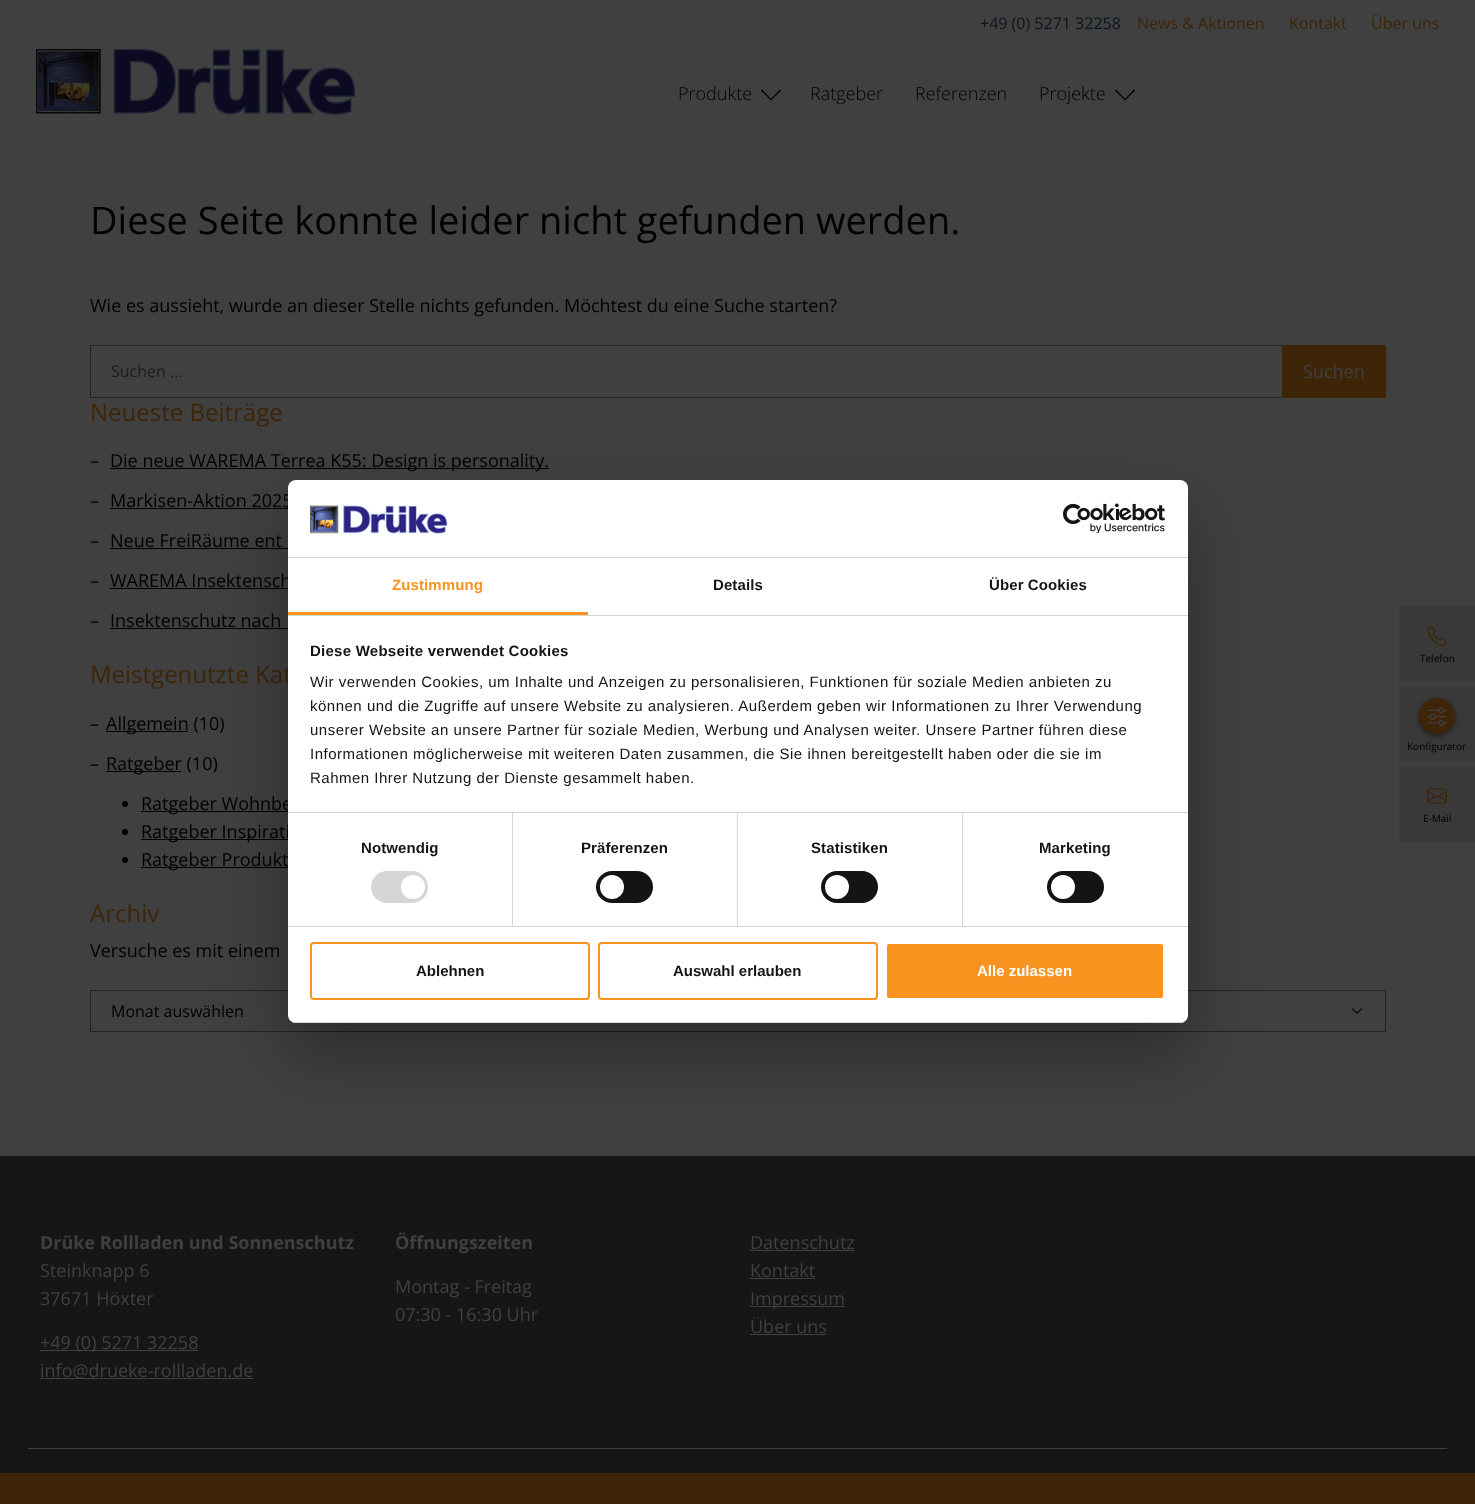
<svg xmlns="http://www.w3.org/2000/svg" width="1475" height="1504">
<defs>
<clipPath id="clip1"><rect x="288" y="480" width="900" height="543" rx="8"/></clipPath>
</defs>
<rect width="100%" height="100%" fill="#3e2508"/>
<rect width="1475" height="1156" fill="#404040"/>
<text x="980" y="29" style="font-family:Open Sans;font-size:16px;fill:#0a141e">+49 (0) 5271 32258</text>
<text x="1137" y="29" style="font-family:Open Sans;font-size:16px;fill:#3e2508">News &amp; Aktionen</text>
<text x="1289" y="29" style="font-family:Open Sans;font-size:16px;fill:#3e2508">Kontakt</text>
<text x="1371" y="29" style="font-family:Open Sans;font-size:16px;fill:#3e2508">Über uns</text>
<image x="36" y="49" width="319" height="66" href="media/1.png"/>
<text x="678" y="100" style="font-family:Open Sans;font-size:18px;font-weight:300;fill:#010101">Produkte</text>
<path d="M781 90.5l-10 10l-.5-1l9.5-10z" fill="#010101"/>
<path d="M771.5 99.5l-.5 1l-10-10l1-1z" fill="#010101"/>
<text x="810" y="100" style="font-family:Open Sans;font-size:18px;font-weight:300;fill:#010101">Ratgeber</text>
<text x="915" y="100" style="font-family:Open Sans;font-size:18px;font-weight:300;fill:#010101">Referenzen</text>
<text x="1039" y="100" style="font-family:Open Sans;font-size:18px;font-weight:300;fill:#010101">Projekte</text>
<path d="M1135 90.5l-10 10l-.5-1l9.5-10z" fill="#010101"/>
<path d="M1125.5 99.5l-.5 1l-10-10l1-1z" fill="#010101"/>
<text x="90" y="234" style="font-family:Open Sans;font-size:38px;fill:#010101">Diese Seite konnte leider nicht gefunden werden.</text>
<text x="90" y="312" style="font-family:Open Sans;font-size:18px;fill:#010101">Wie es aussieht, wurde an dieser Stelle nichts gefunden. Möchtest du eine Suche starten?</text>
<rect x="90.5" y="345.5" width="1192" height="52" fill="none" stroke="#222324"/>
<text x="111" y="377" style="font-family:Open Sans;font-size:16px;fill:#1b1d1f">Suchen …</text>
<rect x="1282" y="345" width="104" height="53" fill="#3e2508"/>
<text x="1303" y="378" style="font-family:Open Sans;font-size:18px;fill:#404040">Suchen</text>
<text x="90" y="421" style="font-family:Open Sans;font-size:24px;fill:#3e2508">Neueste Beiträge</text>
<text x="90" y="467" style="font-family:Open Sans;font-size:18px;fill:#010101">–</text>
<rect x="110" y="468" width="439" height="1" fill="#010101"/>
<text x="110" y="467" style="font-family:Open Sans;font-size:18px;fill:#010101">Die neue WAREMA Terrea K55: Design is personality.</text>
<text x="90" y="507" style="font-family:Open Sans;font-size:18px;fill:#010101">–</text>
<text x="110" y="507" style="font-family:Open Sans;font-size:18px;fill:#010101">Markisen-Aktion 2025</text>
<rect x="110" y="508" width="178" height="1" fill="#010101"/>
<text x="90" y="547" style="font-family:Open Sans;font-size:18px;fill:#010101">–</text>
<text x="110" y="547" style="font-family:Open Sans;font-size:18px;fill:#010101">Neue FreiRäume ent</text>
<rect x="110" y="548" width="178" height="1" fill="#010101"/>
<text x="90" y="587" style="font-family:Open Sans;font-size:18px;fill:#010101">–</text>
<text x="110" y="587" style="font-family:Open Sans;font-size:18px;fill:#010101">WAREMA Insektensch</text>
<rect x="110" y="588" width="178" height="1" fill="#010101"/>
<text x="90" y="627" style="font-family:Open Sans;font-size:18px;fill:#010101">–</text>
<text x="110" y="627" style="font-family:Open Sans;font-size:18px;fill:#010101">Insektenschutz nach</text>
<rect x="110" y="628" width="178" height="1" fill="#010101"/>
<text x="90" y="683" style="font-family:Open Sans;font-size:24px;fill:#3e2508">Meistgenutzte Kat</text>
<text x="90" y="730" style="font-family:Open Sans;font-size:18px;fill:#010101">–</text>
<rect x="106" y="731" width="82" height="1" fill="#010101"/>
<text x="106" y="730" style="font-family:Open Sans;font-size:18px;fill:#010101">Allgemein (10)</text>
<text x="90" y="770" style="font-family:Open Sans;font-size:18px;fill:#010101">–</text>
<rect x="106" y="771" width="75" height="1" fill="#010101"/>
<text x="106" y="770" style="font-family:Open Sans;font-size:18px;fill:#010101">Ratgeber (10)</text>
<circle cx="125" cy="804" r="3" fill="#010101"/>
<rect x="141" y="811" width="147" height="1" fill="#010101"/>
<text x="141" y="810" style="font-family:Open Sans;font-size:18px;fill:#010101">Ratgeber Wohnbe</text>
<circle cx="125" cy="832" r="3" fill="#010101"/>
<rect x="141" y="839" width="147" height="1" fill="#010101"/>
<text x="141" y="838" style="font-family:Open Sans;font-size:18px;fill:#010101">Ratgeber Inspirati</text>
<circle cx="125" cy="860" r="3" fill="#010101"/>
<rect x="141" y="867" width="147" height="1" fill="#010101"/>
<text x="141" y="866" style="font-family:Open Sans;font-size:18px;fill:#010101">Ratgeber Produkt</text>
<text x="90" y="922" style="font-family:Open Sans;font-size:24px;fill:#3e2508">Archiv</text>
<text x="90" y="957" style="font-family:Open Sans;font-size:18px;fill:#010101">Versuche es mit einem</text>
<path d="M1352.5 1009l4.5 4l4.5-4" fill="none" stroke="#0d0f10" stroke-width="1.5" stroke-linecap="round" stroke-linejoin="round"/>
<rect x="90.5" y="990.5" width="1295" height="41" fill="none" stroke="#222324"/>
<text x="111" y="1017" style="font-family:Open Sans;font-size:16px;fill:#010101">Monat auswählen</text>
<rect y="1156" width="1475" height="317" fill="#161616"/>
<text x="40" y="1249" style="font-family:Open Sans;font-size:18px;font-weight:bold;fill:#404040">Drüke Rollladen und Sonnenschutz</text>
<text x="40" y="1277" style="font-family:Open Sans;font-size:18px;fill:#404040">Steinknapp 6</text>
<text x="40" y="1305" style="font-family:Open Sans;font-size:18px;fill:#404040">37671 Höxter</text>
<rect x="40" y="1350" width="158" height="1" fill="#404040"/>
<text x="40" y="1349" style="font-family:Open Sans;font-size:18px;fill:#404040">+49 (0) 5271 32258</text>
<rect x="40" y="1378" width="213" height="1" fill="#404040"/>
<text x="40" y="1377" style="font-family:Open Sans;font-size:18px;fill:#404040">info@drueke-rollladen.de</text>
<text x="395" y="1249" style="font-family:Open Sans;font-size:18px;font-weight:bold;fill:#404040">Öffnungszeiten</text>
<text x="395" y="1293" style="font-family:Open Sans;font-size:18px;fill:#404040">Montag - Freitag</text>
<text x="395" y="1321" style="font-family:Open Sans;font-size:18px;fill:#404040">07:30 - 16:30 Uhr</text>
<text x="750" y="1249" style="font-family:Open Sans;font-size:18px;fill:#404040">Datenschutz</text>
<rect x="750" y="1250" width="104" height="1" fill="#404040"/>
<text x="750" y="1277" style="font-family:Open Sans;font-size:18px;fill:#404040">Kontakt</text>
<rect x="750" y="1278" width="65" height="1" fill="#404040"/>
<rect x="750" y="1306" width="95" height="1" fill="#404040"/>
<text x="750" y="1305" style="font-family:Open Sans;font-size:18px;fill:#404040">Impressum</text>
<text x="750" y="1333" style="font-family:Open Sans;font-size:18px;fill:#404040">Über uns</text>
<rect x="750" y="1334" width="76" height="1" fill="#404040"/>
<rect x="28" y="1448" width="1419" height="1" fill="#404040"/>
<rect x="288" y="512" width="900" height="543" rx="8" fill="#0000004d" filter="blur(34px)"/>
<rect x="288" y="480" width="900" height="543" rx="8" fill="#fff"/>
<rect x="288" y="557" width="900" height="1" fill="#d6d6d6"/>
<image x="310" y="505" width="138" height="29" href="media/2.png"/>
<image x="1063" y="503" width="102" height="30" href="media/3.png"/>
<rect x="288" y="615" width="900" height="1" fill="#d6d6d6"/>
<rect x="288" y="612" width="300" height="3" fill="#f7931e"/>
<text x="392" y="590" style="font-family:Liberation Sans;font-size:15px;font-weight:bold;letter-spacing:0.1px;fill:#f7931e">Zustimmung</text>
<text x="713" y="590" style="font-family:Liberation Sans;font-size:15px;font-weight:bold;letter-spacing:0.1px;fill:#141414">Details</text>
<text x="989" y="590" style="font-family:Liberation Sans;font-size:15px;font-weight:bold;letter-spacing:0.1px;fill:#141414">Über Cookies</text>
<rect x="288" y="812" width="900" height="1" fill="#d6d6d6"/>
<text x="310" y="656" style="font-family:Liberation Sans;font-size:15px;font-weight:bold;letter-spacing:0.25px;fill:#141414">Diese Webseite verwendet Cookies</text>
<text x="310" y="687" style="font-family:Liberation Sans;font-size:15px;letter-spacing:0.5px;fill:#141414">Wir verwenden Cookies, um Inhalte und Anzeigen zu personalisieren, Funktionen für soziale Medien anbieten zu</text>
<text x="310" y="711" style="font-family:Liberation Sans;font-size:15px;letter-spacing:0.5px;fill:#141414">können und die Zugriffe auf unsere Website zu analysieren. Außerdem geben wir Informationen zu Ihrer Verwendung</text>
<text x="310" y="735" style="font-family:Liberation Sans;font-size:15px;letter-spacing:0.5px;fill:#141414">unserer Website an unsere Partner für soziale Medien, Werbung und Analysen weiter. Unsere Partner führen diese</text>
<text x="310" y="759" style="font-family:Liberation Sans;font-size:15px;letter-spacing:0.5px;fill:#141414">Informationen möglicherweise mit weiteren Daten zusammen, die Sie ihnen bereitgestellt haben oder die sie im</text>
<text x="310" y="783" style="font-family:Liberation Sans;font-size:15px;letter-spacing:0.5px;fill:#141414">Rahmen Ihrer Nutzung der Dienste gesammelt haben.</text>
<rect x="288" y="926" width="900" height="1" fill="#d6d6d6"/>
<rect x="512" y="813" width="1" height="113" fill="#d6d6d6"/>
<text x="361" y="853" style="font-family:Liberation Sans;font-size:15px;font-weight:bold;letter-spacing:0.1px;fill:#141414">Notwendig</text>
<rect x="371" y="871" width="57" height="32" rx="16" fill="#d6d6d6"/>
<circle cx="413" cy="887" r="12" fill="#fff"/>
<rect x="737" y="813" width="1" height="113" fill="#d6d6d6"/>
<text x="581" y="853" style="font-family:Liberation Sans;font-size:15px;font-weight:bold;letter-spacing:0.1px;fill:#141414">Präferenzen</text>
<rect x="596" y="871" width="57" height="32" rx="16" fill="#141414"/>
<circle cx="612" cy="887" r="12" fill="#fff"/>
<rect x="962" y="813" width="1" height="113" fill="#d6d6d6"/>
<text x="811" y="853" style="font-family:Liberation Sans;font-size:15px;font-weight:bold;letter-spacing:0.1px;fill:#141414">Statistiken</text>
<rect x="821" y="871" width="57" height="32" rx="16" fill="#141414"/>
<circle cx="837" cy="887" r="12" fill="#fff"/>
<text x="1039" y="853" style="font-family:Liberation Sans;font-size:15px;font-weight:bold;letter-spacing:0.1px;fill:#141414">Marketing</text>
<rect x="1047" y="871" width="57" height="32" rx="16" fill="#141414"/>
<circle cx="1063" cy="887" r="12" fill="#fff"/>
<g clip-path="url(#clip1)">
<rect x="288" y="1022" width="900" height="1" fill="#d6d6d6"/>
</g>
<rect x="311" y="943" width="278" height="56" rx="3" fill="none" stroke="#f7931e" stroke-width="2"/>
<text x="416" y="976" style="font-family:Liberation Sans;font-size:15px;font-weight:bold;fill:#141414">Ablehnen</text>
<rect x="599" y="943" width="278" height="56" rx="3" fill="none" stroke="#f7931e" stroke-width="2"/>
<text x="673" y="976" style="font-family:Liberation Sans;font-size:15px;font-weight:bold;fill:#141414">Auswahl erlauben</text>
<rect x="886" y="943" width="278" height="56" rx="3" fill="#f7931e" stroke="#fff" stroke-width="2"/>
<text x="977" y="976" style="font-family:Liberation Sans;font-size:15px;font-weight:bold;fill:#fff">Alle zulassen</text>
<rect x="1399" y="606" width="76" height="76" fill="#393939"/>
<image x="1427" y="626" width="20" height="20" href="media/4.png"/>
<text x="1420" y="662" style="font-family:Open Sans;font-size:10px;fill:#010101">Telefon</text>
<rect x="1399" y="686" width="76" height="76" fill="#393939"/>
<rect x="1419" y="700" width="36" height="36" rx="18" fill="#1e1e1e" filter="blur(2.5px)"/>
<circle cx="1437" cy="716" r="18" fill="#3e2508"/>
<image x="1427" y="707" width="20" height="19" href="media/5.png"/>
<text x="1407" y="750" style="font-family:Open Sans;font-size:10px;fill:#010101">Konfigurator</text>
<rect x="1399" y="766" width="76" height="76" fill="#393939"/>
<image x="1427" y="788" width="20" height="16" href="media/6.png"/>
<text x="1423" y="822" style="font-family:Open Sans;font-size:10px;fill:#010101">E-Mail</text>
</svg>
